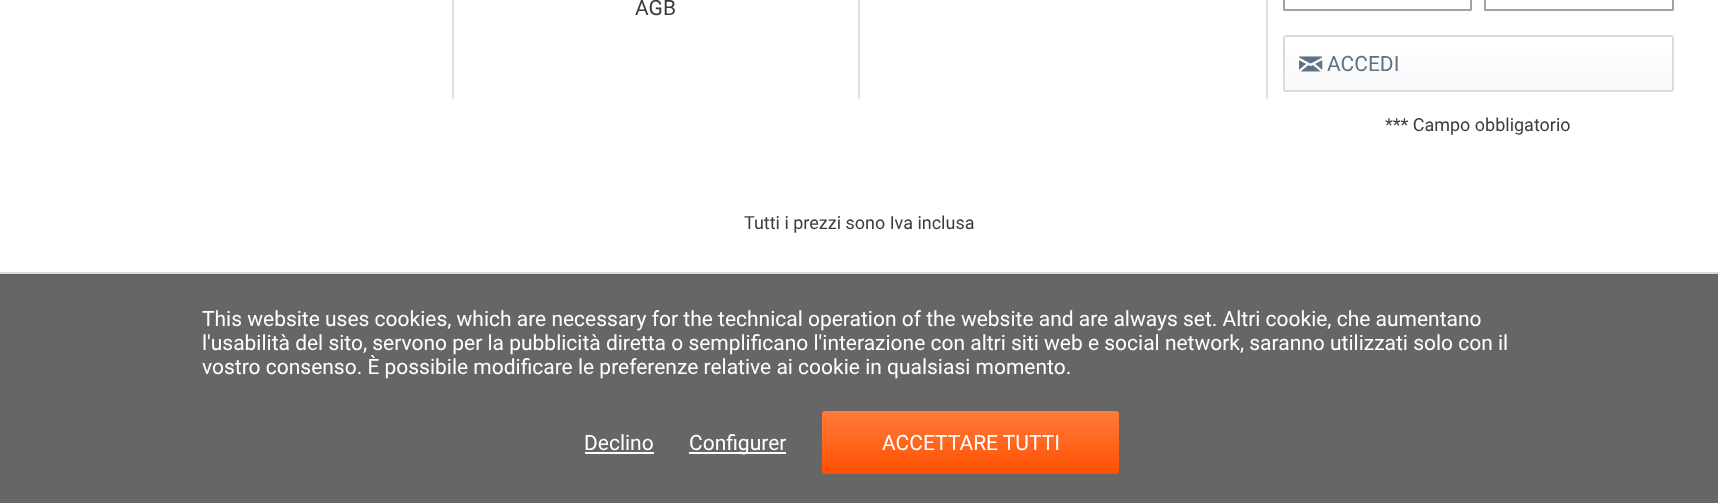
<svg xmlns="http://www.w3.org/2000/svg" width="1718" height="503">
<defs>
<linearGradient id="g1" gradientUnits="userSpaceOnUse" x1="1478" y1="36" x2="1478" y2="90"><stop offset="0" stop-color="#fff"/><stop offset="1" stop-color="#f8f8fa"/></linearGradient>
<linearGradient id="g2" gradientUnits="userSpaceOnUse" x1="971" y1="411" x2="971" y2="474"><stop offset="0" stop-color="#ff7b3d"/><stop offset="1" stop-color="#ff5100"/></linearGradient>
</defs>
<rect width="100%" height="100%" fill="#fff"/>
<rect x="452" width="2" height="99" fill="#e2e2e2"/>
<rect x="858" width="2" height="99" fill="#e2e2e2"/>
<text x="635" y="15" style="font-family:Roboto;font-size:21px;fill:#3c3c3e">AGB</text>
<rect x="1266" width="2" height="99" fill="#e2e2e2"/>
<rect x="1284" y="-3" width="187" height="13" rx="0.5" fill="none" stroke="#a3a3a3" stroke-width="2"/>
<rect x="1485" y="-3" width="188" height="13" rx="0.5" fill="none" stroke="#a3a3a3" stroke-width="2"/>
<rect x="1285" y="55" width="387" height="35" fill="url(#g1)"/>
<rect x="1284" y="36" width="389" height="55" rx="2" fill="none" stroke="#dadae5" stroke-width="2"/>
<image x="1299" y="56" width="24" height="16" href="media/1.png"/>
<text x="1327" y="71" style="font-family:Roboto;font-size:21px;fill:#5f7285">ACCEDI</text>
<text x="1385" y="131" style="font-family:Roboto;font-size:18px;fill:#3c3c3e">*** Campo obbligatorio</text>
<text x="744" y="229" style="font-family:Roboto;font-size:18px;fill:#3c3c3e">Tutti i prezzi sono Iva inclusa</text>
<rect y="274" width="1718" height="229" fill="#666"/>
<rect y="272" width="1718" height="2" fill="#dadae5"/>
<text x="202" y="326" style="font-family:Roboto;font-size:21px;fill:#fff">This website uses cookies, which are necessary for the technical operation of the website and are always set. Altri cookie, che aumentano</text>
<text x="202" y="350" style="font-family:Roboto;font-size:21px;fill:#fff">l'usabilità del sito, servono per la pubblicità diretta o semplificano l'interazione con altri siti web e social network, saranno utilizzati solo con il</text>
<text x="202" y="374" style="font-family:Roboto;font-size:21px;fill:#fff">vostro consenso. È possibile modificare le preferenze relative ai cookie in qualsiasi momento.</text>
<text x="584" y="450" style="font-family:Roboto;font-size:21px;fill:#fff">Declino</text>
<rect x="585" y="452" width="69" height="2" fill="#fff"/>
<rect x="689" y="452" width="97" height="2" fill="#fff"/>
<text x="689" y="450" style="font-family:Roboto;font-size:21px;fill:#fff">Configurer</text>
<rect x="822" y="411" width="297" height="63" rx="3" fill="url(#g2)"/>
<text x="882" y="450" style="font-family:Roboto;font-size:21px;fill:#fff">ACCETTARE TUTTI</text>
</svg>
